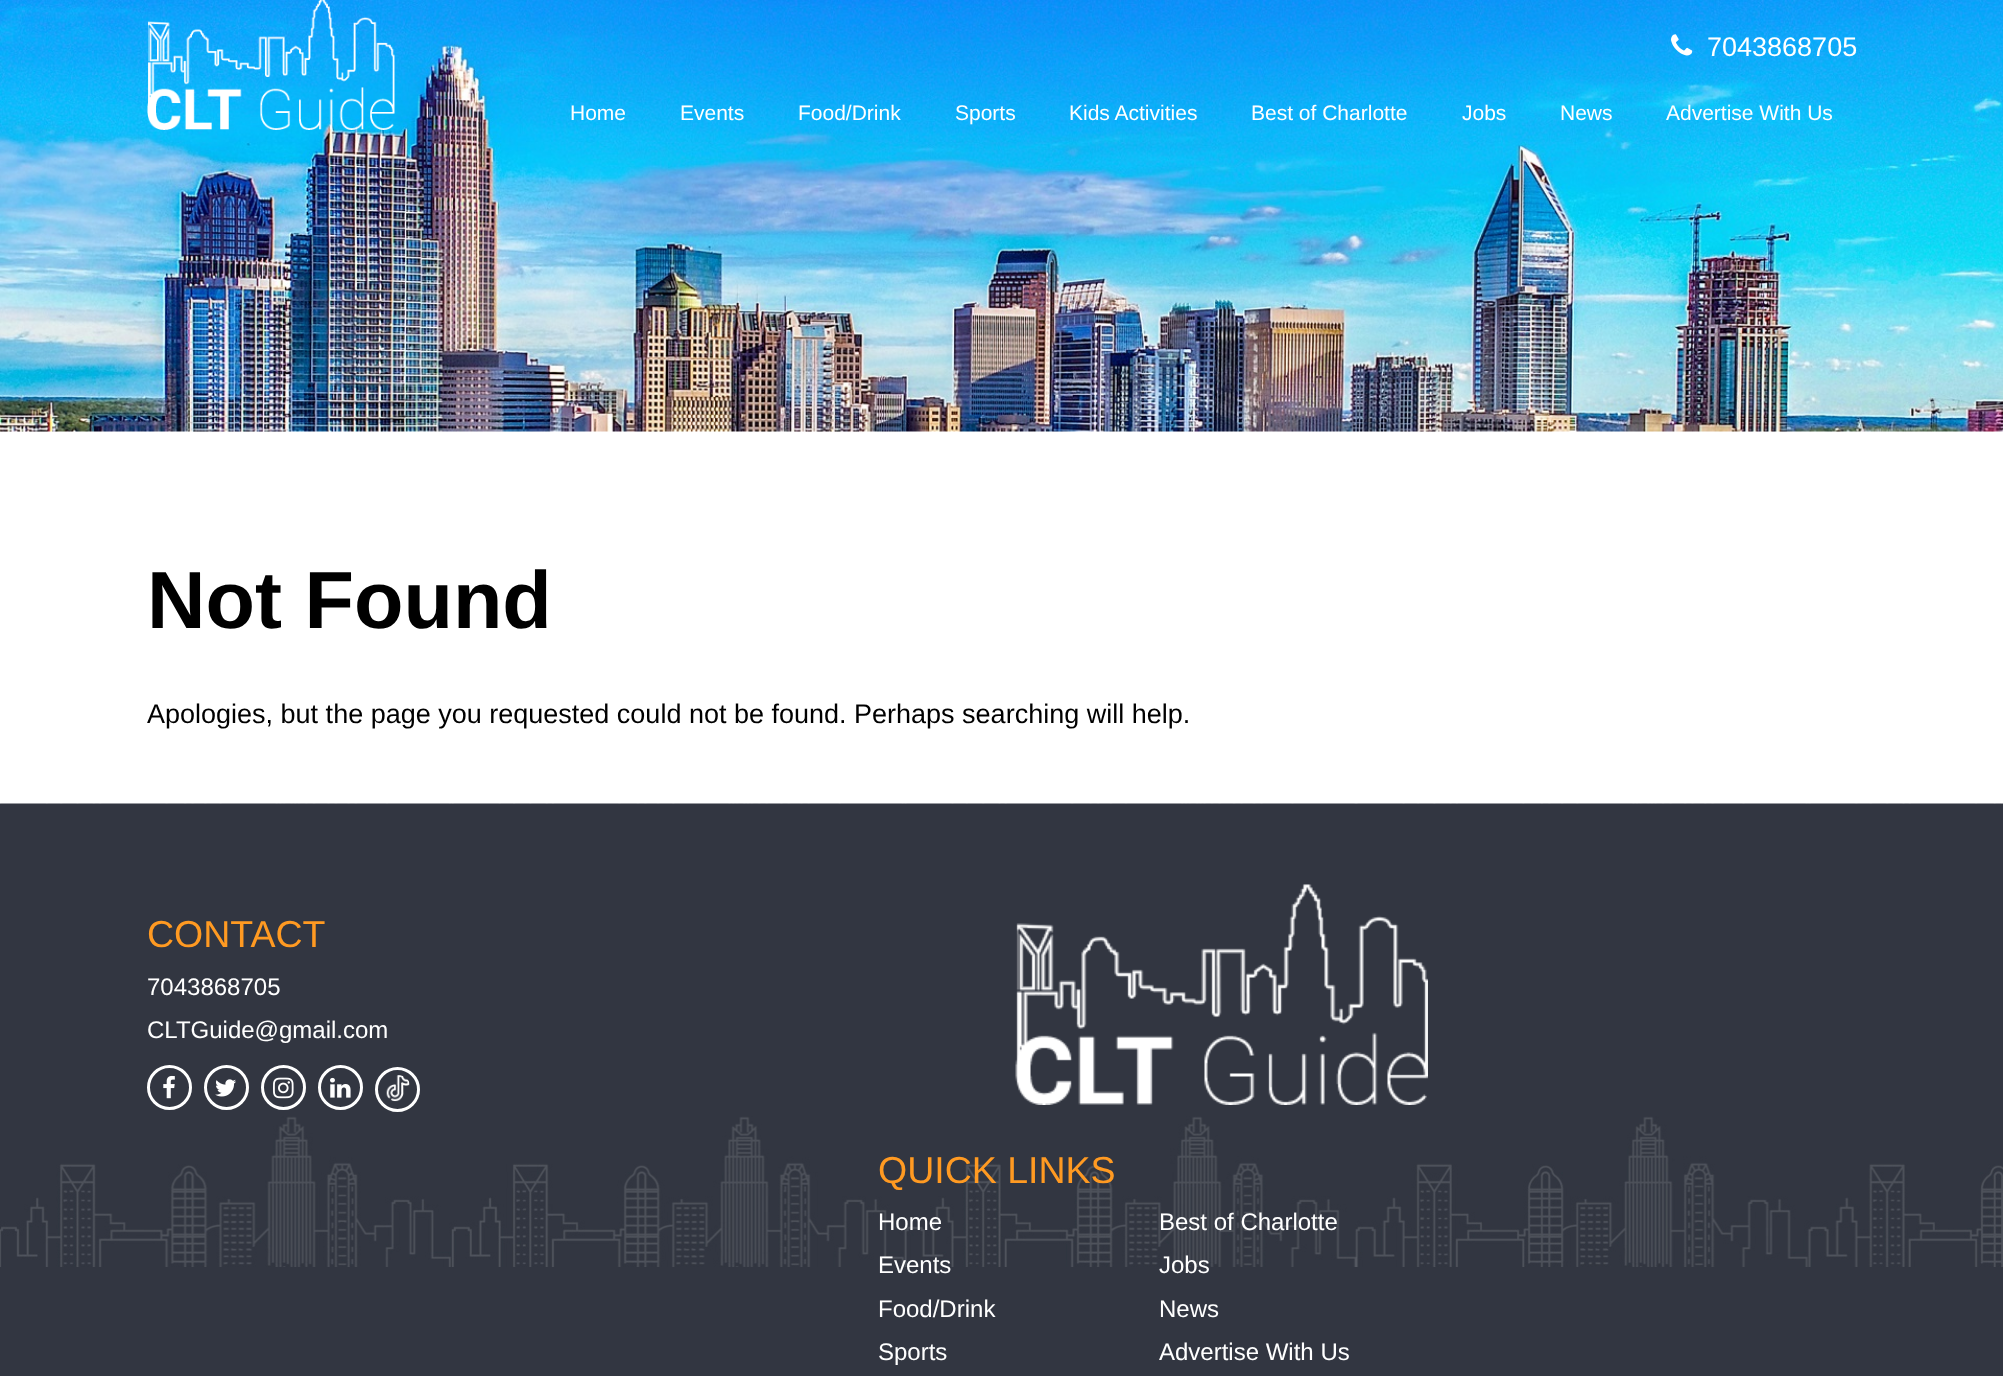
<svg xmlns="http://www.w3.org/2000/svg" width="2003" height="1376">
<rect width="100%" height="100%" fill="#fff"/>
<image x="0" y="0" width="2003" height="432" href="media/1.png"/>
<image x="147" y="0" width="248" height="130" href="media/2.png"/>
<image x="1671" y="34" width="22" height="22" href="media/3.png"/>
<text x="1707" y="56" style="font-family:Liberation Sans;font-size:27px;fill:#fff">7043868705</text>
<text x="570" y="120" style="font-family:Liberation Sans;font-size:21px;fill:#fff">Home</text>
<text x="680" y="120" style="font-family:Liberation Sans;font-size:21px;fill:#fff">Events</text>
<text x="798" y="120" style="font-family:Liberation Sans;font-size:21px;fill:#fff">Food/Drink</text>
<text x="955" y="120" style="font-family:Liberation Sans;font-size:21px;fill:#fff">Sports</text>
<text x="1069" y="120" style="font-family:Liberation Sans;font-size:21px;fill:#fff">Kids Activities</text>
<text x="1251" y="120" style="font-family:Liberation Sans;font-size:21px;fill:#fff">Best of Charlotte</text>
<text x="1462" y="120" style="font-family:Liberation Sans;font-size:21px;fill:#fff">Jobs</text>
<text x="1560" y="120" style="font-family:Liberation Sans;font-size:21px;fill:#fff">News</text>
<text x="1666" y="120" style="font-family:Liberation Sans;font-size:21px;fill:#fff">Advertise With Us</text>
<text x="147" y="628" style="font-family:Liberation Sans;font-size:81px;font-weight:bold;fill:#000">Not Found</text>
<text x="147" y="723" style="font-family:Liberation Sans;font-size:27px;fill:#000">Apologies, but the page you requested could not be found. Perhaps searching will help.</text>
<image x="0" y="803" width="2003" height="573" href="media/4.png"/>
<text x="147" y="947" style="font-family:Liberation Sans;font-size:37.5px;fill:#ff9a22">CONTACT</text>
<text x="147" y="995" style="font-family:Liberation Sans;font-size:24px;fill:#fff">7043868705</text>
<text x="147" y="1038" style="font-family:Liberation Sans;font-size:24px;fill:#fff">CLTGuide@gmail.com</text>
<circle cx="169.5" cy="1087.5" r="21" fill="none" stroke="#fff" stroke-width="3"/>
<image x="163" y="1075" width="12" height="24" href="media/5.png"/>
<circle cx="226.5" cy="1087.5" r="21" fill="none" stroke="#fff" stroke-width="3"/>
<image x="215" y="1079" width="21" height="18" href="media/6.png"/>
<circle cx="283.5" cy="1087.5" r="21" fill="none" stroke="#fff" stroke-width="3"/>
<image x="273" y="1077" width="21" height="22" href="media/7.png"/>
<circle cx="340.5" cy="1087.5" r="21" fill="none" stroke="#fff" stroke-width="3"/>
<image x="330" y="1077" width="21" height="21" href="media/8.png"/>
<circle cx="397.5" cy="1089.5" r="21" fill="none" stroke="#fff" stroke-width="3"/>
<image x="386" y="1075" width="24" height="27" href="media/9.png"/>
<image x="1015" y="884" width="413" height="221" href="media/10.png"/>
<text x="878" y="1183" style="font-family:Liberation Sans;font-size:37.5px;fill:#ff9a22">QUICK LINKS</text>
<text x="878" y="1230" style="font-family:Liberation Sans;font-size:24px;fill:#fff">Home</text>
<text x="1159" y="1230" style="font-family:Liberation Sans;font-size:24px;fill:#fff">Best of Charlotte</text>
<text x="878" y="1273" style="font-family:Liberation Sans;font-size:24px;fill:#fff">Events</text>
<text x="1159" y="1273" style="font-family:Liberation Sans;font-size:24px;fill:#fff">Jobs</text>
<text x="878" y="1317" style="font-family:Liberation Sans;font-size:24px;fill:#fff">Food/Drink</text>
<text x="1159" y="1317" style="font-family:Liberation Sans;font-size:24px;fill:#fff">News</text>
<text x="878" y="1360" style="font-family:Liberation Sans;font-size:24px;fill:#fff">Sports</text>
<text x="1159" y="1360" style="font-family:Liberation Sans;font-size:24px;fill:#fff">Advertise With Us</text>
</svg>
